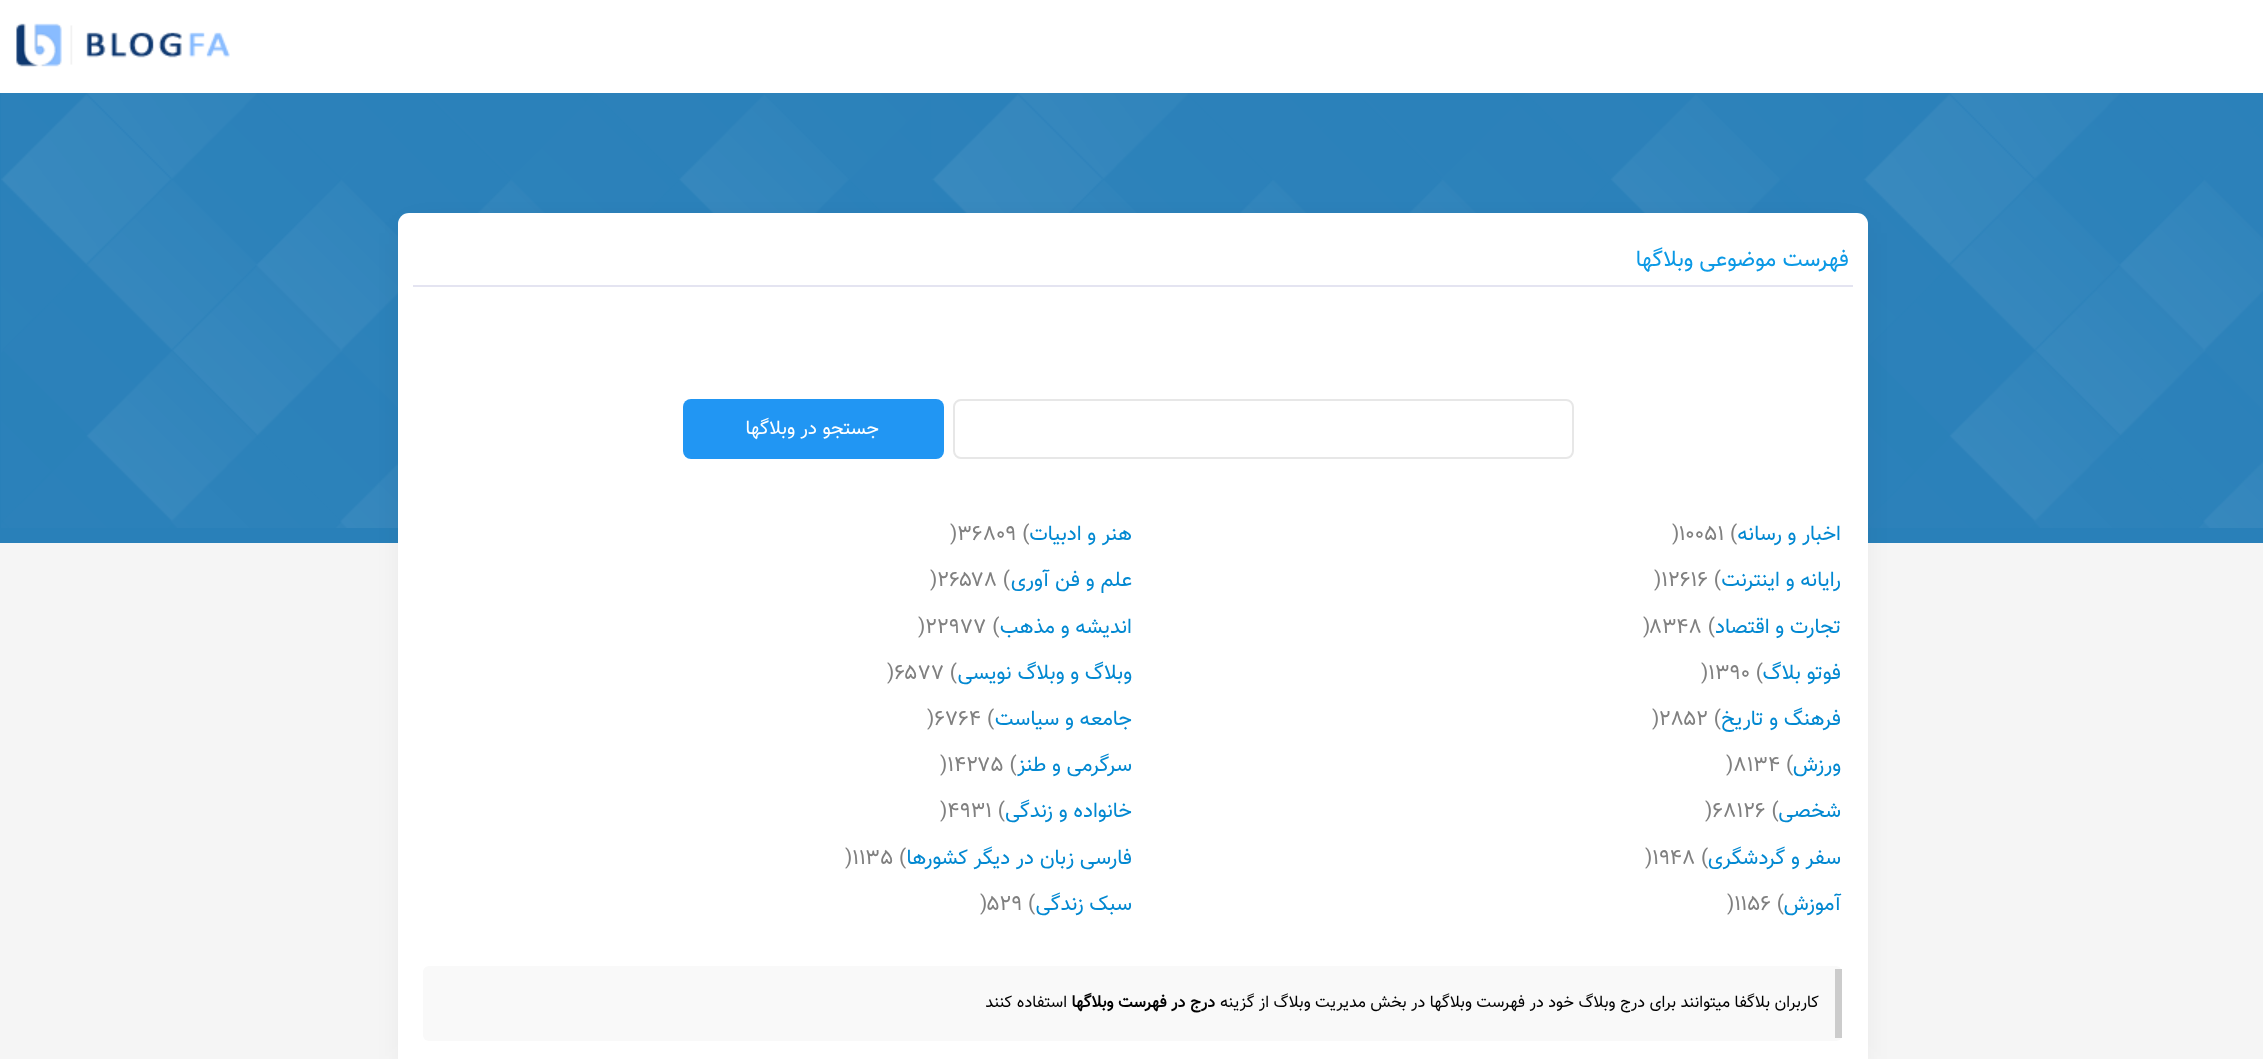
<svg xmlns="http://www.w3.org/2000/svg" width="2263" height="1059">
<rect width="100%" height="100%" fill="#f5f5f5"/>
<rect width="2263" height="93" fill="#fff"/>
<image x="16" y="23" width="214" height="44" href="media/1.png"/>
<rect y="93" width="2263" height="450" fill="#2980b9"/>
<image x="1" y="93" width="2262" height="435" href="media/2.png"/>
<rect x="410" y="233" width="1446" height="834" fill="#0000001a" filter="blur(16.5px)"/>
<rect x="398" y="213" width="1470" height="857" rx="11" fill="#fff"/>
<rect x="413" y="285" width="1440" height="2" fill="#e4e4f1"/>
<text x="1849" y="266" style="font-family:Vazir;font-size:22.5px;direction:rtl;fill:#0b99e5">فهرست موضوعی وبلاگها</text>
<rect x="954" y="400" width="619" height="58" rx="7" fill="none" stroke="#e7e7e7" stroke-width="2"/>
<rect x="683" y="399" width="261" height="60" rx="8" fill="#2196f3"/>
<text x="879" y="434" style="font-family:Vazir;font-size:19.5px;direction:rtl;fill:#fff">جستجو در وبلاگها</text>
<text x="1841" y="540" style="font-family:Vazir;font-size:21px;direction:rtl;fill:#0288d1">اخبار و رسانه</text>
<text x="1672" y="540" style="font-family:Vazir;font-size:21px;fill:#808080">)۱۰۰۵۱ (</text>
<text x="1132" y="540" style="font-family:Vazir;font-size:21px;direction:rtl;fill:#0288d1">هنر و ادبیات</text>
<text x="950" y="540" style="font-family:Vazir;font-size:21px;fill:#808080">)۳۶۸۰۹ (</text>
<text x="1841" y="586" style="font-family:Vazir;font-size:21px;direction:rtl;fill:#0288d1">رایانه و اینترنت</text>
<text x="1654" y="586" style="font-family:Vazir;font-size:21px;fill:#808080">)۱۲۶۱۶ (</text>
<text x="1132" y="586" style="font-family:Vazir;font-size:21px;direction:rtl;fill:#0288d1">علم و فن آوری</text>
<text x="930" y="586" style="font-family:Vazir;font-size:21px;fill:#808080">)۲۶۵۷۸ (</text>
<text x="1841" y="633" style="font-family:Vazir;font-size:21px;direction:rtl;fill:#0288d1">تجارت و اقتصاد</text>
<text x="1643" y="633" style="font-family:Vazir;font-size:21px;fill:#808080">)۸۳۴۸ (</text>
<text x="1132" y="633" style="font-family:Vazir;font-size:21px;direction:rtl;fill:#0288d1">اندیشه و مذهب</text>
<text x="918" y="633" style="font-family:Vazir;font-size:21px;fill:#808080">)۲۲۹۷۷ (</text>
<text x="1841" y="679" style="font-family:Vazir;font-size:21px;direction:rtl;fill:#0288d1">فوتو بلاگ</text>
<text x="1701" y="679" style="font-family:Vazir;font-size:21px;fill:#808080">)۱۳۹۰ (</text>
<text x="1132" y="679" style="font-family:Vazir;font-size:21px;direction:rtl;fill:#0288d1">وبلاگ و وبلاگ نویسی</text>
<text x="887" y="679" style="font-family:Vazir;font-size:21px;fill:#808080">)۶۵۷۷ (</text>
<text x="1841" y="725" style="font-family:Vazir;font-size:21px;direction:rtl;fill:#0288d1">فرهنگ و تاریخ</text>
<text x="1652" y="725" style="font-family:Vazir;font-size:21px;fill:#808080">)۲۸۵۲ (</text>
<text x="1132" y="725" style="font-family:Vazir;font-size:21px;direction:rtl;fill:#0288d1">جامعه و سیاست</text>
<text x="927" y="725" style="font-family:Vazir;font-size:21px;fill:#808080">)۶۷۶۴ (</text>
<text x="1841" y="771" style="font-family:Vazir;font-size:21px;direction:rtl;fill:#0288d1">ورزش</text>
<text x="1726" y="771" style="font-family:Vazir;font-size:21px;fill:#808080">)۸۱۳۴ (</text>
<text x="1132" y="771" style="font-family:Vazir;font-size:21px;direction:rtl;fill:#0288d1">سرگرمی و طنز</text>
<text x="940" y="771" style="font-family:Vazir;font-size:21px;fill:#808080">)۱۴۲۷۵ (</text>
<text x="1841" y="817" style="font-family:Vazir;font-size:21px;direction:rtl;fill:#0288d1">شخصی</text>
<text x="1705" y="817" style="font-family:Vazir;font-size:21px;fill:#808080">)۶۸۱۲۶ (</text>
<text x="1132" y="817" style="font-family:Vazir;font-size:21px;direction:rtl;fill:#0288d1">خانواده و زندگی</text>
<text x="940" y="817" style="font-family:Vazir;font-size:21px;fill:#808080">)۴۹۳۱ (</text>
<text x="1841" y="864" style="font-family:Vazir;font-size:21px;direction:rtl;fill:#0288d1">سفر و گردشگری</text>
<text x="1645" y="864" style="font-family:Vazir;font-size:21px;fill:#808080">)۱۹۴۸ (</text>
<text x="1132" y="864" style="font-family:Vazir;font-size:21px;direction:rtl;fill:#0288d1">فارسی زبان در دیگر کشورها</text>
<text x="845" y="864" style="font-family:Vazir;font-size:21px;fill:#808080">)۱۱۳۵ (</text>
<text x="1841" y="910" style="font-family:Vazir;font-size:21px;direction:rtl;fill:#0288d1">آموزش</text>
<text x="1727" y="910" style="font-family:Vazir;font-size:21px;fill:#808080">)۱۱۵۶ (</text>
<text x="1132" y="910" style="font-family:Vazir;font-size:21px;direction:rtl;fill:#0288d1">سبک زندگی</text>
<text x="980" y="910" style="font-family:Vazir;font-size:21px;fill:#808080">)۵۲۹ (</text>
<rect x="423" y="966" width="1419" height="75" rx="6" fill="#f9f9f9"/>
<rect x="1835" y="969" width="7" height="69" fill="#ccc"/>
<text x="1819" y="1007" style="font-family:Vazir;font-size:16.5px;direction:rtl;fill:#000">کاربران</text>
<text x="1770" y="1007" style="font-family:Vazir;font-size:16.5px;direction:rtl;fill:#000">بلاگفا میتوانند برای درج وبلاگ خود در فهرست وبلاگها در بخش مدیریت وبلاگ</text>
<text x="1269" y="1007" style="font-family:Vazir;font-size:16.5px;direction:rtl;fill:#000">از گزینه</text>
<text x="1215" y="1007" style="font-family:Vazir;font-size:16.5px;font-weight:bold;direction:rtl;fill:#000">درج در فهرست وبلاگها</text>
<text x="1067" y="1007" style="font-family:Vazir;font-size:16.5px;direction:rtl;fill:#000">استفاده کنند</text>
</svg>
